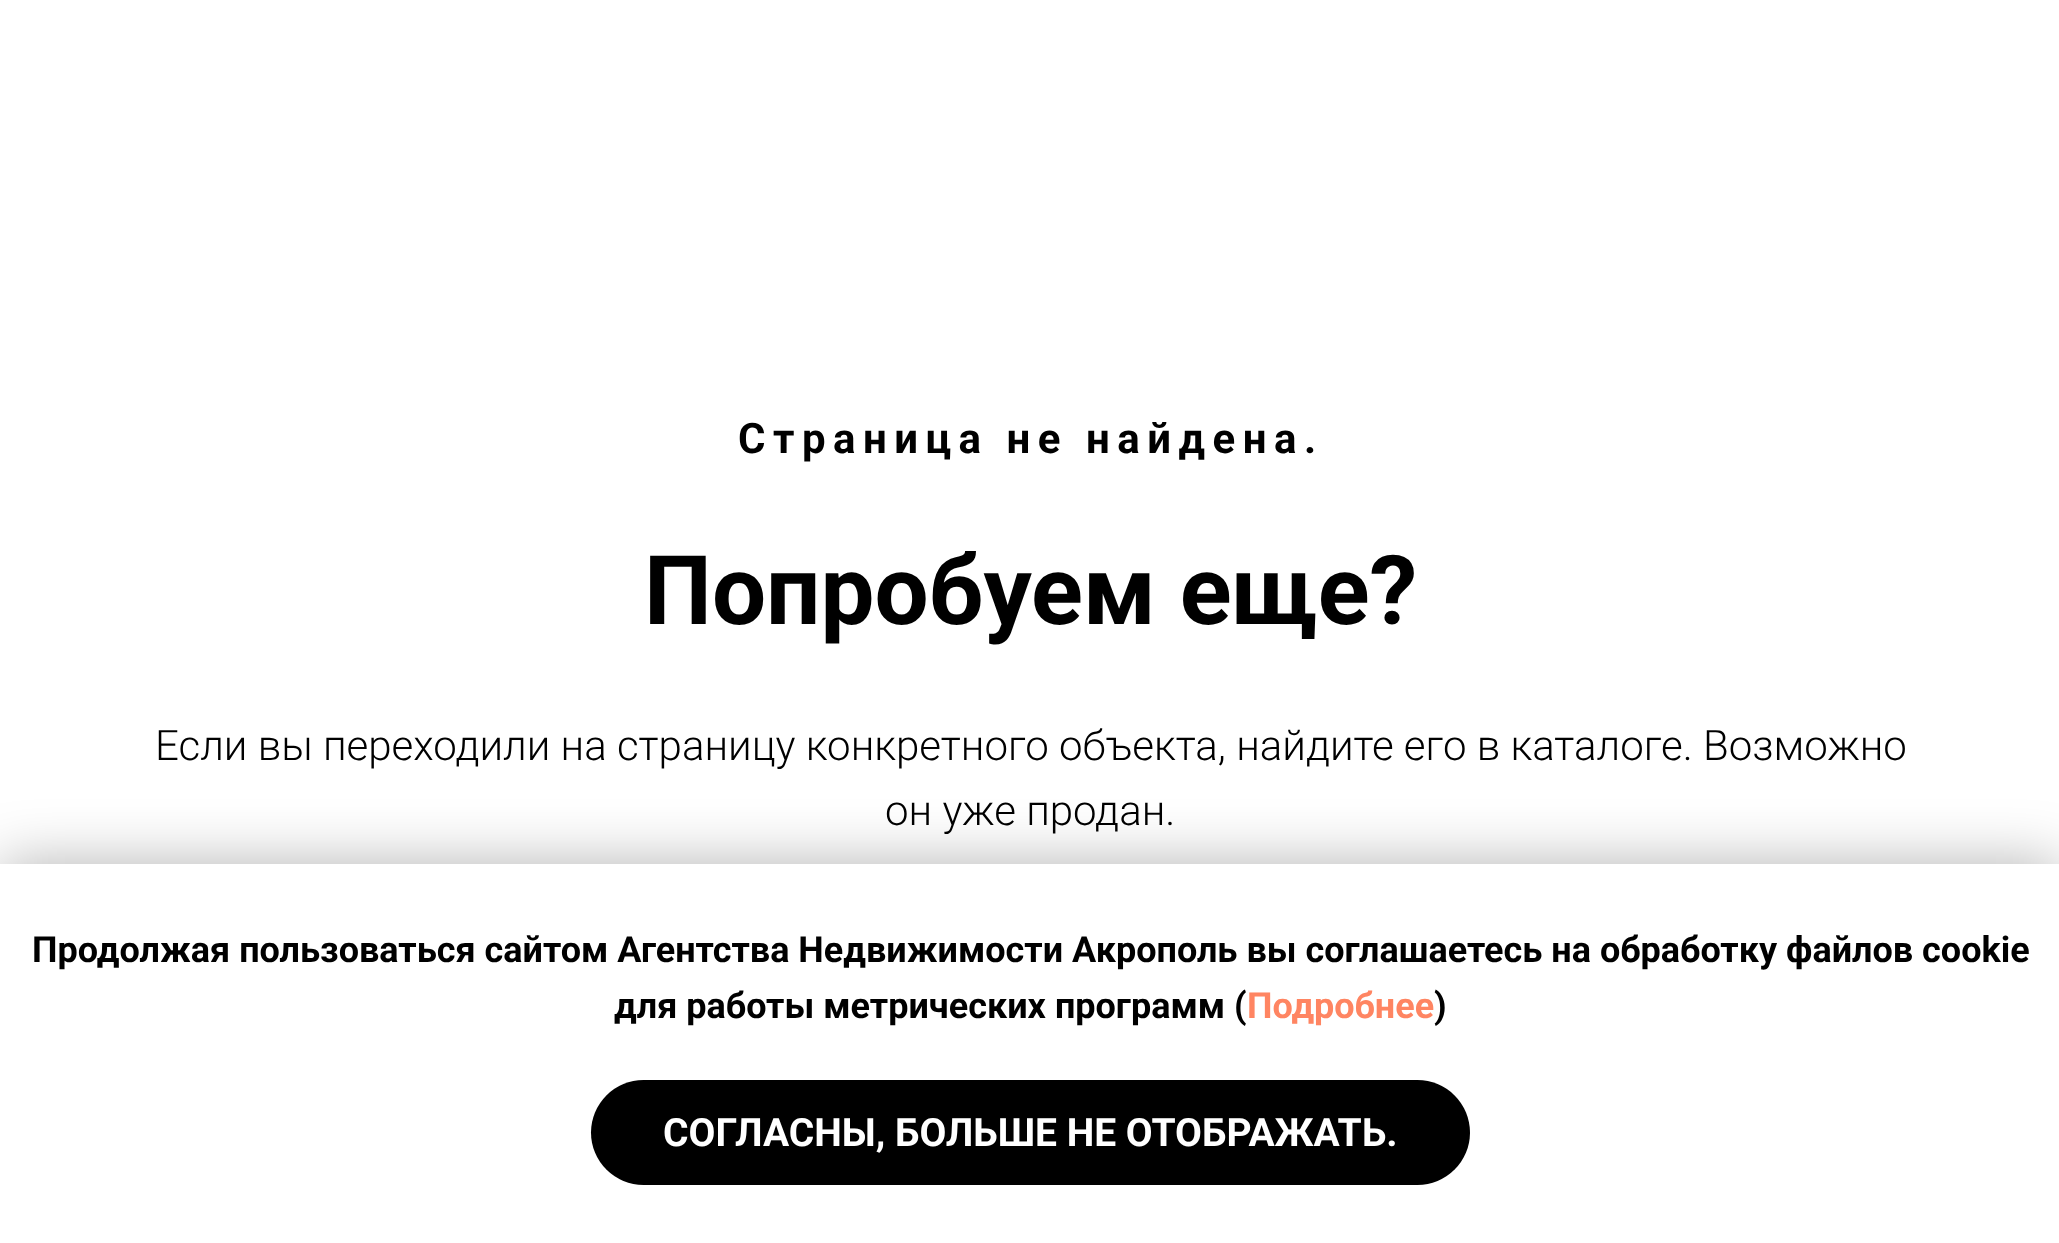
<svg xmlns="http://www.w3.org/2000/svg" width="2059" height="1243">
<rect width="100%" height="100%" fill="#fff"/>
<text x="738" y="453" style="font-family:Roboto;font-size:42px;font-weight:bold;letter-spacing:7.5px;fill:#000">Страница не найдена.</text>
<text x="644" y="624" style="font-family:Roboto;font-size:96px;font-weight:bold;fill:#000">Попробуем еще?</text>
<text x="155" y="760" style="font-family:Roboto;font-size:42px;font-weight:300;fill:#000">Если вы переходили на страницу конкретного объекта, найдите его в каталоге. Возможно</text>
<text x="885" y="825" style="font-family:Roboto;font-size:42px;font-weight:300;fill:#000">он уже продан.</text>
<rect y="864" width="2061" height="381" fill="#0000004d" filter="blur(30px)"/>
<rect y="864" width="2059" height="379" fill="#fff"/>
<text x="32" y="962" style="font-family:Roboto;font-size:36px;font-weight:bold;fill:#000">Продолжая пользоваться сайтом Агентства Недвижимости Акрополь вы соглашаетесь на обработку файлов cookie</text>
<text x="614" y="1018" style="font-family:Roboto;font-size:36px;font-weight:bold;fill:#000">для работы метрических программ (</text>
<text x="1247" y="1018" style="font-family:Roboto;font-size:36px;font-weight:bold;fill:#ff8562">Подробнее</text>
<text x="1434" y="1018" style="font-family:Roboto;font-size:36px;font-weight:bold;fill:#000">)</text>
<rect x="591" y="1080" width="879" height="105" rx="52.5" fill="#000"/>
<text x="663" y="1146" style="font-family:Roboto;font-size:39px;font-weight:bold;fill:#fff">СОГЛАСНЫ, БОЛЬШЕ НЕ ОТОБРАЖАТЬ.</text>
</svg>
